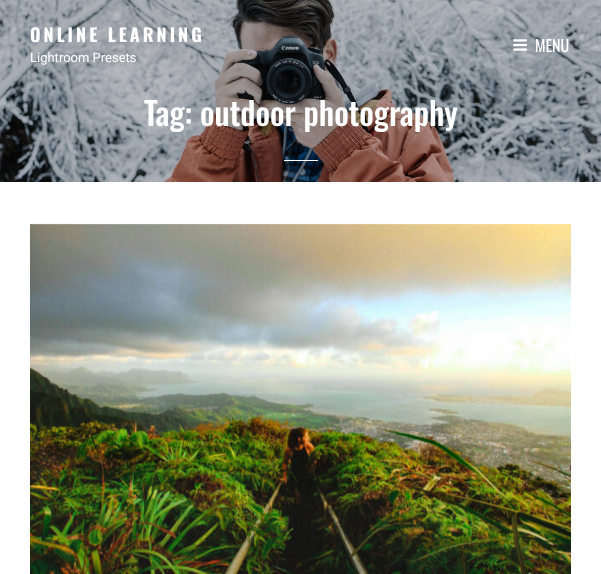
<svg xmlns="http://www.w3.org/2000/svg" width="601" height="574">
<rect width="100%" height="100%" fill="#fff"/>
<image x="0" y="0" width="601" height="182" href="media/2.png"/>
<text x="30" y="42" style="font-family:Oswald;font-size:18px;font-weight:bold;letter-spacing:3px;fill:#fff">ONLINE LEARNING</text>
<text x="30" y="62" style="font-family:Roboto;font-size:13px;fill:#fff">Lightroom Presets</text>
<image x="513" y="39" width="14" height="12" href="media/1.png"/>
<text x="535" y="52" style="font-family:Oswald;font-size:16px;fill:#fff">MENU</text>
<text x="144" y="126" style="font-family:Oswald;font-size:32px;font-weight:500;fill:#fff">Tag: outdoor photography</text>
<rect x="284" y="160" width="34" height="1" fill="#fff"/>
<image x="30" y="223" width="541" height="351" href="media/3.png"/>
</svg>
